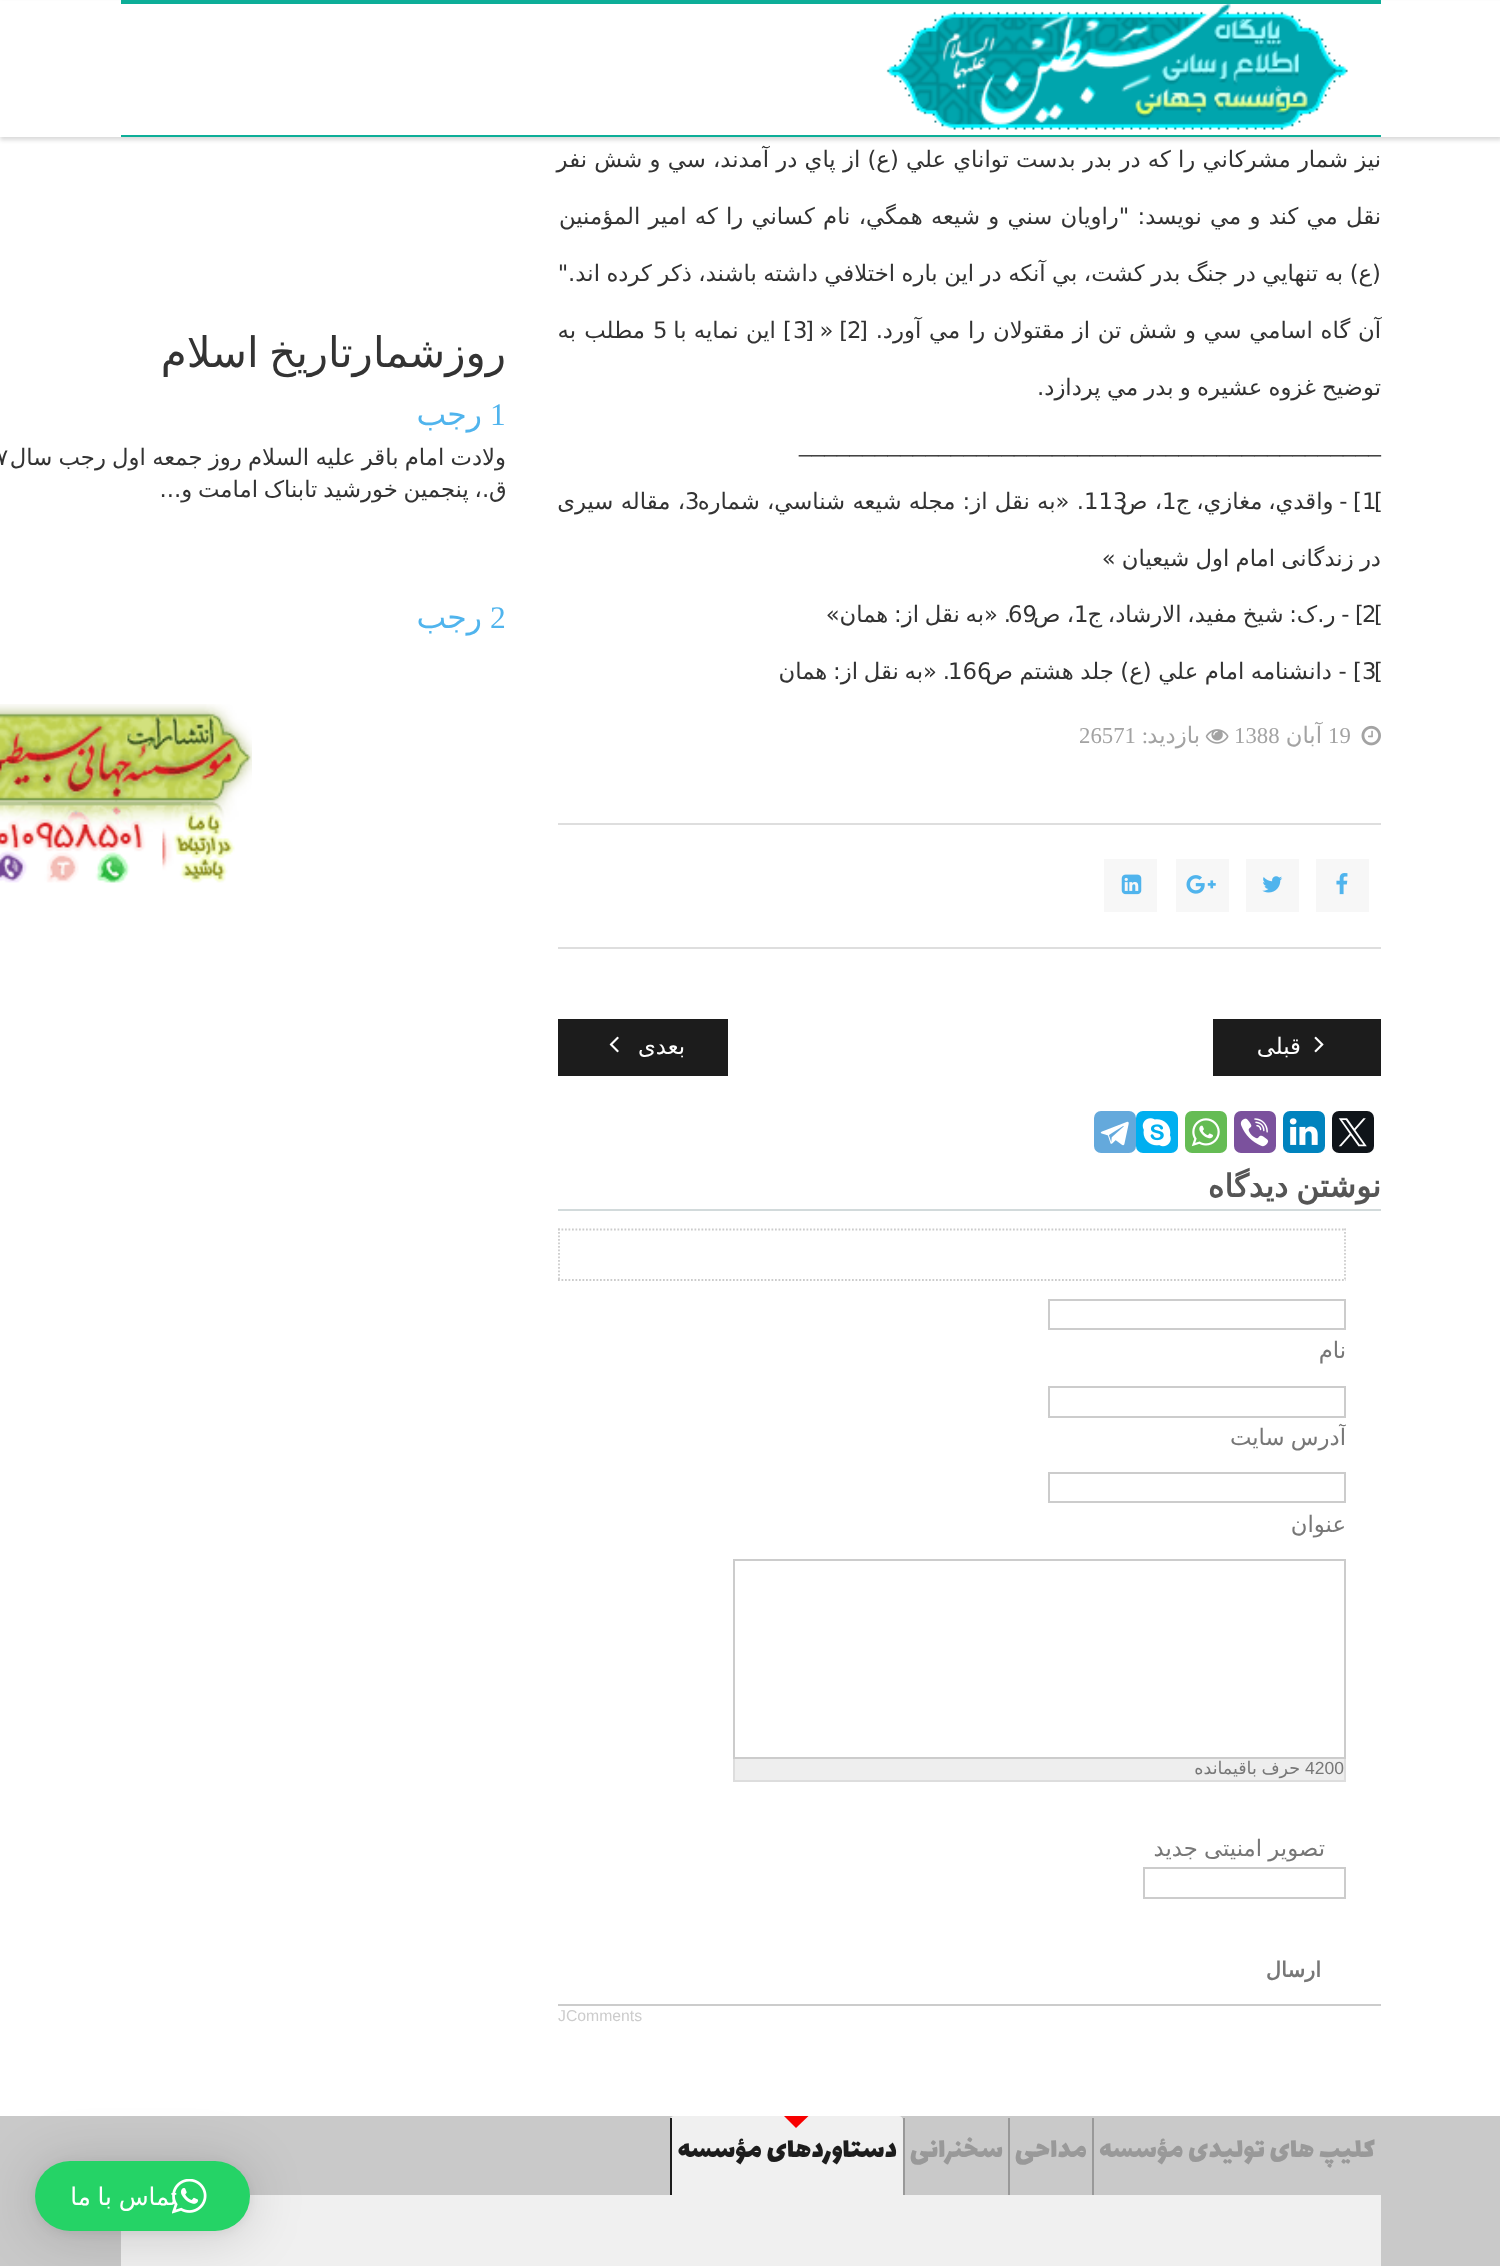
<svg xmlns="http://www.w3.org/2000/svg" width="1500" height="2266">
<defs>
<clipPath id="clip1"><rect x="593" y="1386" width="753" height="68"/></clipPath>
<clipPath id="clip2"><rect y="387" width="506" height="203"/></clipPath>
</defs>
<rect width="100%" height="100%" fill="#fff"/>
<rect y="4" width="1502" height="136" fill="#00000026" filter="blur(2px)"/>
<rect y="1" width="1500" height="136" fill="#fff"/>
<rect x="121" width="1260" height="4" fill="#0dae98"/>
<rect x="121" y="135" width="1260" height="2" fill="#0dae98"/>
<image x="886" y="3" width="462" height="127" href="media/1.png"/>
<text x="1381" y="167" style="font-family:DejaVu Sans;font-size:22.75px;direction:rtl;fill:#333">نيز شمار مشرکاني را که در بدر بدست تواناي علي (ع) از پاي در آمدند، سي و شش نفر</text>
<text x="1381" y="224" word-spacing="1" style="font-family:DejaVu Sans;font-size:22.75px;direction:rtl;fill:#333">نقل مي کند و مي نويسد: "راويان سني و شيعه همگي، نام کساني را که امير المؤمنين</text>
<text x="1381" y="281" word-spacing="-0.75" style="font-family:DejaVu Sans;font-size:22.75px;direction:rtl;fill:#333">(ع) به تنهايي در جنگ بدر کشت، بي آنکه در اين باره اختلافي داشته باشند، ذکر کرده اند."</text>
<text x="1381" y="338" word-spacing="0.5" style="font-family:DejaVu Sans;font-size:22.75px;direction:rtl;fill:#333">آن گاه اسامي سي و شش تن از مقتولان را مي آورد. [</text>
<text x="847" y="338" style="font-family:DejaVu Sans;font-size:22.75px;fill:#333">2</text>
<text x="805" y="338" word-spacing="-1.5" style="font-family:DejaVu Sans;font-size:22.75px;fill:#333">] » [</text>
<text x="793" y="338" style="font-family:DejaVu Sans;font-size:22.75px;fill:#333">3</text>
<text x="792" y="338" style="font-family:DejaVu Sans;font-size:22.75px;direction:rtl;fill:#333">] اين نمايه با</text>
<text x="653" y="338" style="font-family:DejaVu Sans;font-size:22.75px;fill:#333">5</text>
<text x="645" y="338" word-spacing="1" style="font-family:DejaVu Sans;font-size:22.75px;direction:rtl;fill:#333">مطلب به</text>
<text x="1381" y="395" word-spacing="-1" style="font-family:DejaVu Sans;font-size:22.75px;direction:rtl;fill:#333">توضيح غزوه عشيره و بدر مي پردازد.</text>
<text x="799" y="452" style="font-family:Liberation Sans;font-size:22.75px;fill:#333">______________________________________________</text>
<text x="1374" y="509" style="font-family:DejaVu Sans;font-size:22.75px;fill:#333">[</text>
<text x="1362" y="509" word-spacing="-1.5" style="font-family:DejaVu Sans;font-size:22.75px;direction:rtl;fill:#333">] - واقدي، مغازي، ج</text>
<text x="1362" y="509" style="font-family:DejaVu Sans;font-size:22.75px;fill:#333">1</text>
<text x="1162" y="509" style="font-family:DejaVu Sans;font-size:22.75px;fill:#333">1</text>
<text x="1084" y="509" style="font-family:DejaVu Sans;font-size:22.75px;fill:#333">113</text>
<text x="1162" y="509" style="font-family:DejaVu Sans;font-size:22.75px;direction:rtl;fill:#333">، ص</text>
<text x="1084" y="509" style="font-family:DejaVu Sans;font-size:22.75px;direction:rtl;fill:#333">. «به نقل از: مجله شيعه شناسي، شماره</text>
<text x="685" y="509" style="font-family:DejaVu Sans;font-size:22.75px;fill:#333">3</text>
<text x="685" y="509" style="font-family:DejaVu Sans;font-size:22.75px;direction:rtl;fill:#333">، مقاله سيرى</text>
<text x="1381" y="566" word-spacing="-1" style="font-family:DejaVu Sans;font-size:22.75px;direction:rtl;fill:#333">در زندگانى امام اول شيعيان »</text>
<text x="1374" y="622" style="font-family:DejaVu Sans;font-size:22.75px;fill:#333">[</text>
<text x="1364" y="622" word-spacing="-1.5" style="font-family:DejaVu Sans;font-size:22.75px;direction:rtl;fill:#333">] - ر.ک: شيخ مفيد، الارشاد، ج</text>
<text x="1074" y="622" style="font-family:DejaVu Sans;font-size:22.75px;fill:#333">1</text>
<text x="1011" y="622" word-spacing="-1.5" style="font-family:DejaVu Sans;font-size:22.75px;direction:rtl;fill:#333">. «به نقل از: همان»</text>
<text x="1008" y="622" style="font-family:DejaVu Sans;font-size:22.75px;fill:#333">69</text>
<text x="1362" y="622" style="font-family:DejaVu Sans;font-size:22.75px;fill:#333">2</text>
<text x="1074" y="622" word-spacing="-1" style="font-family:DejaVu Sans;font-size:22.75px;direction:rtl;fill:#333">، ص</text>
<text x="1374" y="679" style="font-family:DejaVu Sans;font-size:22.75px;fill:#333">[</text>
<text x="950" y="679" word-spacing="-1.5" style="font-family:DejaVu Sans;font-size:22.75px;direction:rtl;fill:#333">. «به نقل از: همان</text>
<text x="948" y="679" style="font-family:DejaVu Sans;font-size:22.75px;fill:#333">166</text>
<text x="1362" y="679" word-spacing="-0.75" style="font-family:DejaVu Sans;font-size:22.75px;direction:rtl;fill:#333">] - دانشنامه امام علي (ع) جلد هشتم ص</text>
<text x="1362" y="679" style="font-family:DejaVu Sans;font-size:22.75px;fill:#333">3</text>
<image x="1361" y="725" width="20" height="21" href="media/2.png"/>
<text x="1328" y="743" style="font-family:Liberation Serif;font-size:22.75px;fill:#a3a3a3">19</text>
<text x="1322" y="743" style="font-family:DejaVu Sans;font-size:22.75px;direction:rtl;fill:#a3a3a3">آبان</text>
<text x="1234" y="743" style="font-family:Liberation Serif;font-size:22.75px;fill:#a3a3a3">1388</text>
<image x="1205" y="729" width="24" height="15" href="media/3.png"/>
<text x="1200" y="743" style="font-family:DejaVu Sans;font-size:22.75px;direction:rtl;fill:#a3a3a3">بازدید</text>
<text x="1148" y="743" style="font-family:Liberation Serif;font-size:22.75px;direction:rtl;fill:#a3a3a3">:</text>
<text x="1079" y="743" style="font-family:Liberation Serif;font-size:22.75px;fill:#a3a3a3">26571</text>
<rect x="558" y="823" width="823" height="2" fill="#dedede"/>
<rect x="558" y="947" width="823" height="2" fill="#dedede"/>
<rect x="1316" y="859" width="53" height="53" fill="#f7f7f7"/>
<image x="1336" y="873" width="12" height="22" href="media/4.png"/>
<rect x="1246" y="859" width="53" height="53" fill="#f7f7f7"/>
<image x="1262" y="876" width="21" height="17" href="media/5.png"/>
<rect x="1176" y="859" width="53" height="53" fill="#f7f7f7"/>
<image x="1186" y="875" width="30" height="19" href="media/6.png"/>
<rect x="1104" y="859" width="53" height="53" fill="#f7f7f7"/>
<image x="1121" y="874" width="21" height="21" href="media/7.png"/>
<rect x="1213" y="1019" width="168" height="57" fill="#1c1c1c"/>
<image x="1314" y="1036" width="10" height="17" href="media/8.png"/>
<text x="1301" y="1054" style="font-family:DejaVu Sans;font-size:22.75px;direction:rtl;fill:#fff">قبلی</text>
<rect x="558" y="1019" width="170" height="57" fill="#1c1c1c"/>
<text x="685" y="1054" style="font-family:DejaVu Sans;font-size:22.75px;direction:rtl;fill:#fff">بعدی</text>
<image x="609" y="1036" width="10" height="17" href="media/9.png"/>
<rect x="1332" y="1111" width="42" height="42" rx="7" fill="#0f1419"/>
<image x="1338" y="1118" width="29" height="29" href="media/10.png"/>
<rect x="1283" y="1111" width="42" height="42" rx="7" fill="#0083be"/>
<image x="1289" y="1118" width="29" height="27" href="media/11.png"/>
<rect x="1234" y="1111" width="42" height="42" rx="7" fill="#7b519d"/>
<image x="1240" y="1118" width="29" height="29" href="media/12.png"/>
<rect x="1185" y="1111" width="42" height="42" rx="7" fill="#65bc54"/>
<image x="1191" y="1118" width="29" height="29" href="media/13.png"/>
<rect x="1136" y="1111" width="42" height="42" rx="7" fill="#00aff0"/>
<image x="1142" y="1118" width="29" height="29" href="media/14.png"/>
<rect x="1094" y="1111" width="42" height="42" rx="7" fill="#64a9dc"/>
<image x="1100" y="1121" width="29" height="25" href="media/15.png"/>
<rect x="558" y="1209" width="823" height="2" fill="#d2dadb"/>
<text x="1381" y="1197" word-spacing="-2" style="font-family:DejaVu Sans;font-size:31.5px;font-weight:bold;direction:rtl;fill:#555">نوشتن دیدگاه</text>
<path d="M558 1229.5h788" fill="none" stroke="#ccc" stroke-width="1.8" stroke-dasharray="1.75 1.75"/>
<path d="M1345 1228.5v52.5" fill="none" stroke="#ccc" stroke-width="1.8" stroke-dasharray="1.75 1.75"/>
<path d="M558 1280h788" fill="none" stroke="#ccc" stroke-width="1.8" stroke-dasharray="1.75 1.75"/>
<path d="M559 1228.5v52.5" fill="none" stroke="#ccc" stroke-width="1.8" stroke-dasharray="1.75 1.75"/>
<rect x="1049" y="1300" width="296" height="29" fill="none" stroke="#ccc" stroke-width="2"/>
<text x="1346" y="1358" style="font-family:DejaVu Sans;font-size:22.75px;direction:rtl;fill:#777">نام</text>
<rect x="1049" y="1387" width="296" height="30" fill="none" stroke="#ccc" stroke-width="2"/>
<g clip-path="url(#clip1)">
<text x="1346" y="1445" word-spacing="-1" style="font-family:DejaVu Sans;font-size:22.75px;direction:rtl;fill:#777">آدرس سایت</text>
</g>
<rect x="1049" y="1473" width="296" height="29" fill="none" stroke="#ccc" stroke-width="2"/>
<text x="1346" y="1532" style="font-family:DejaVu Sans;font-size:22.75px;direction:rtl;fill:#777">عنوان</text>
<rect x="734" y="1560" width="611" height="198" fill="none" stroke="#ccc" stroke-width="2"/>
<rect x="735" y="1759" width="609" height="21" fill="#eee"/>
<rect x="1344" y="1759" width="2" height="23" fill="#ddd"/>
<rect x="733" y="1780" width="613" height="2" fill="#ddd"/>
<rect x="733" y="1759" width="2" height="23" fill="#ddd"/>
<text x="1305" y="1774" style="font-family:Liberation Sans;font-size:17.5px;fill:#777">4200</text>
<text x="1300" y="1774" word-spacing="-1" style="font-family:DejaVu Sans;font-size:17.5px;direction:rtl;fill:#777">حرف باقیمانده</text>
<text x="1325" y="1856" word-spacing="-1" style="font-family:DejaVu Sans;font-size:22.75px;direction:rtl;fill:#777">تصویر امنیتی جدید</text>
<rect x="1144" y="1868" width="201" height="30" fill="none" stroke="#ccc" stroke-width="2"/>
<text x="1321" y="1977" style="font-family:DejaVu Sans;font-size:21px;font-weight:bold;direction:rtl;fill:#777">ارسال</text>
<rect x="558" y="2004" width="823" height="2" fill="#ccc"/>
<text x="558" y="2021" style="font-family:Liberation Sans;font-size:15.75px;fill:#ccc">JComments</text>
<text x="506" y="367" word-spacing="-3" style="font-family:DejaVu Sans;font-size:42px;direction:rtl;fill:#333">روزشمارتاریخ اسلام</text>
<text x="490" y="425" style="font-family:Liberation Serif;font-size:31.5px;fill:#50b4ed">1</text>
<text x="482" y="425" style="font-family:DejaVu Sans;font-size:31.5px;direction:rtl;fill:#50b4ed">رجب</text>
<g clip-path="url(#clip2)">
<text x="506" y="465" word-spacing="-1" style="font-family:DejaVu Sans;font-size:22.75px;direction:rtl;fill:#333">ولادت امام باقر علیه السلام روز جمعه اول رجب سال</text>
</g>
<text x="-4" y="465" style="font-family:DejaVu Sans;font-size:22.75px;fill:#333">۷</text>
<g clip-path="url(#clip2)">
<text x="514" y="497" word-spacing="-1.5" style="font-family:DejaVu Sans;font-size:22.75px;direction:rtl;fill:#333">.ق.، پنجمین خورشید تابناک امامت و...</text>
</g>
<text x="490" y="628" style="font-family:Liberation Serif;font-size:31.5px;fill:#50b4ed">2</text>
<text x="482" y="628" style="font-family:DejaVu Sans;font-size:31.5px;direction:rtl;fill:#50b4ed">رجب</text>
<image x="0" y="704" width="252" height="179" href="media/16.png"/>
<rect y="2116" width="1500" height="150" fill="#c9c9c9"/>
<rect x="1092" y="2118" width="2" height="77" fill="#999"/>
<text x="1375" y="2157" style="font-family:Lalezar;font-size:29.75px;direction:rtl;fill:#999">کلیپ های تولیدی مؤسسه</text>
<rect x="1008" y="2118" width="2" height="77" fill="#999"/>
<text x="1087" y="2157" style="font-family:Lalezar;font-size:29.75px;direction:rtl;fill:#999">مداحی</text>
<rect x="903" y="2118" width="2" height="77" fill="#999"/>
<text x="1003" y="2157" style="font-family:Lalezar;font-size:29.75px;direction:rtl;fill:#999">سخنرانی</text>
<path d="M674 2116h225c2 0 4 2 4 4v75h-233v-75c0-2 2-4 4-4z" fill="#f0f0f0"/>
<rect x="670" y="2118" width="2" height="77" fill="#1c1c1c"/>
<path d="M784 2116h24.5l-12.5 12z" fill="#f80000"/>
<text x="897" y="2157" style="font-family:Lalezar;font-size:29.75px;direction:rtl;fill:#1c1c1c">دستاوردهای مؤسسه</text>
<rect x="121" y="2195" width="1260" height="71" fill="#f0f0f0"/>
<rect x="35" y="2165" width="215" height="70" rx="35" fill="#00000029" filter="blur(28px)"/>
<rect x="35" y="2163" width="215" height="70" rx="35" fill="#0000000f" filter="blur(5px)"/>
<rect x="35" y="2161" width="215" height="70" rx="35" fill="#25d366"/>
<text x="177" y="2205" word-spacing="-1" style="font-family:DejaVu Sans;font-size:24.5px;direction:rtl;fill:#fff">تماس با ما</text>
<image x="172" y="2179" width="35" height="35" href="media/17.png"/>
</svg>
